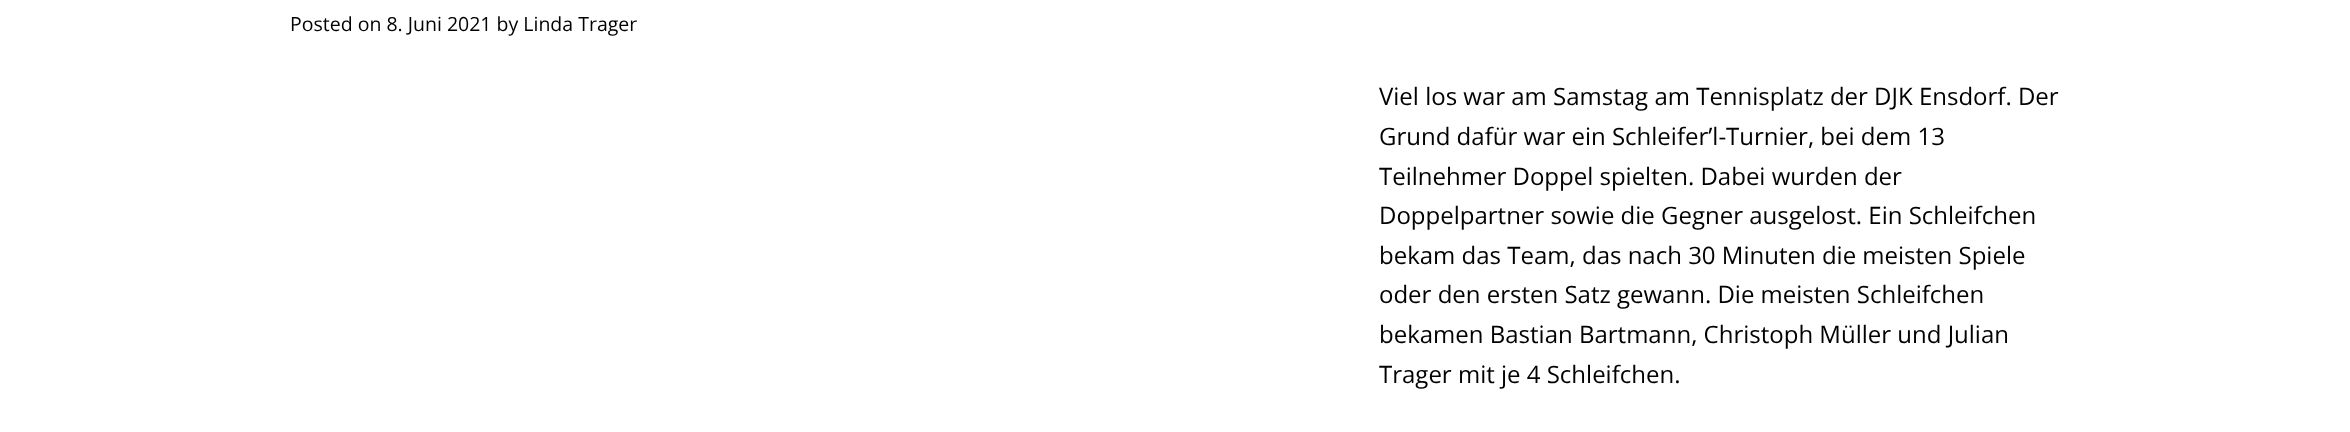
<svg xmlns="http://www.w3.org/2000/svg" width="2350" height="432">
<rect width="100%" height="100%" fill="#fff"/>
<text x="290" y="31" style="font-family:Open Sans;font-size:19.5px;fill:#000">Posted on 8. Juni 2021 by Linda Trager</text>
<text x="1379" y="105" style="font-family:Open Sans;font-size:24px;fill:#000">Viel los war am Samstag am Tennisplatz der DJK Ensdorf. Der</text>
<text x="1379" y="145" style="font-family:Open Sans;font-size:24px;fill:#000">Grund dafür war ein Schleifer’l-Turnier, bei dem 13</text>
<text x="1379" y="185" style="font-family:Open Sans;font-size:24px;fill:#000">Teilnehmer Doppel spielten. Dabei wurden der</text>
<text x="1379" y="224" style="font-family:Open Sans;font-size:24px;fill:#000">Doppelpartner sowie die Gegner ausgelost. Ein Schleifchen</text>
<text x="1379" y="264" style="font-family:Open Sans;font-size:24px;fill:#000">bekam das Team, das nach 30 Minuten die meisten Spiele</text>
<text x="1379" y="303" style="font-family:Open Sans;font-size:24px;fill:#000">oder den ersten Satz gewann. Die meisten Schleifchen</text>
<text x="1379" y="343" style="font-family:Open Sans;font-size:24px;fill:#000">bekamen Bastian Bartmann, Christoph Müller und Julian</text>
<text x="1379" y="383" style="font-family:Open Sans;font-size:24px;fill:#000">Trager mit je 4 Schleifchen.</text>
</svg>
